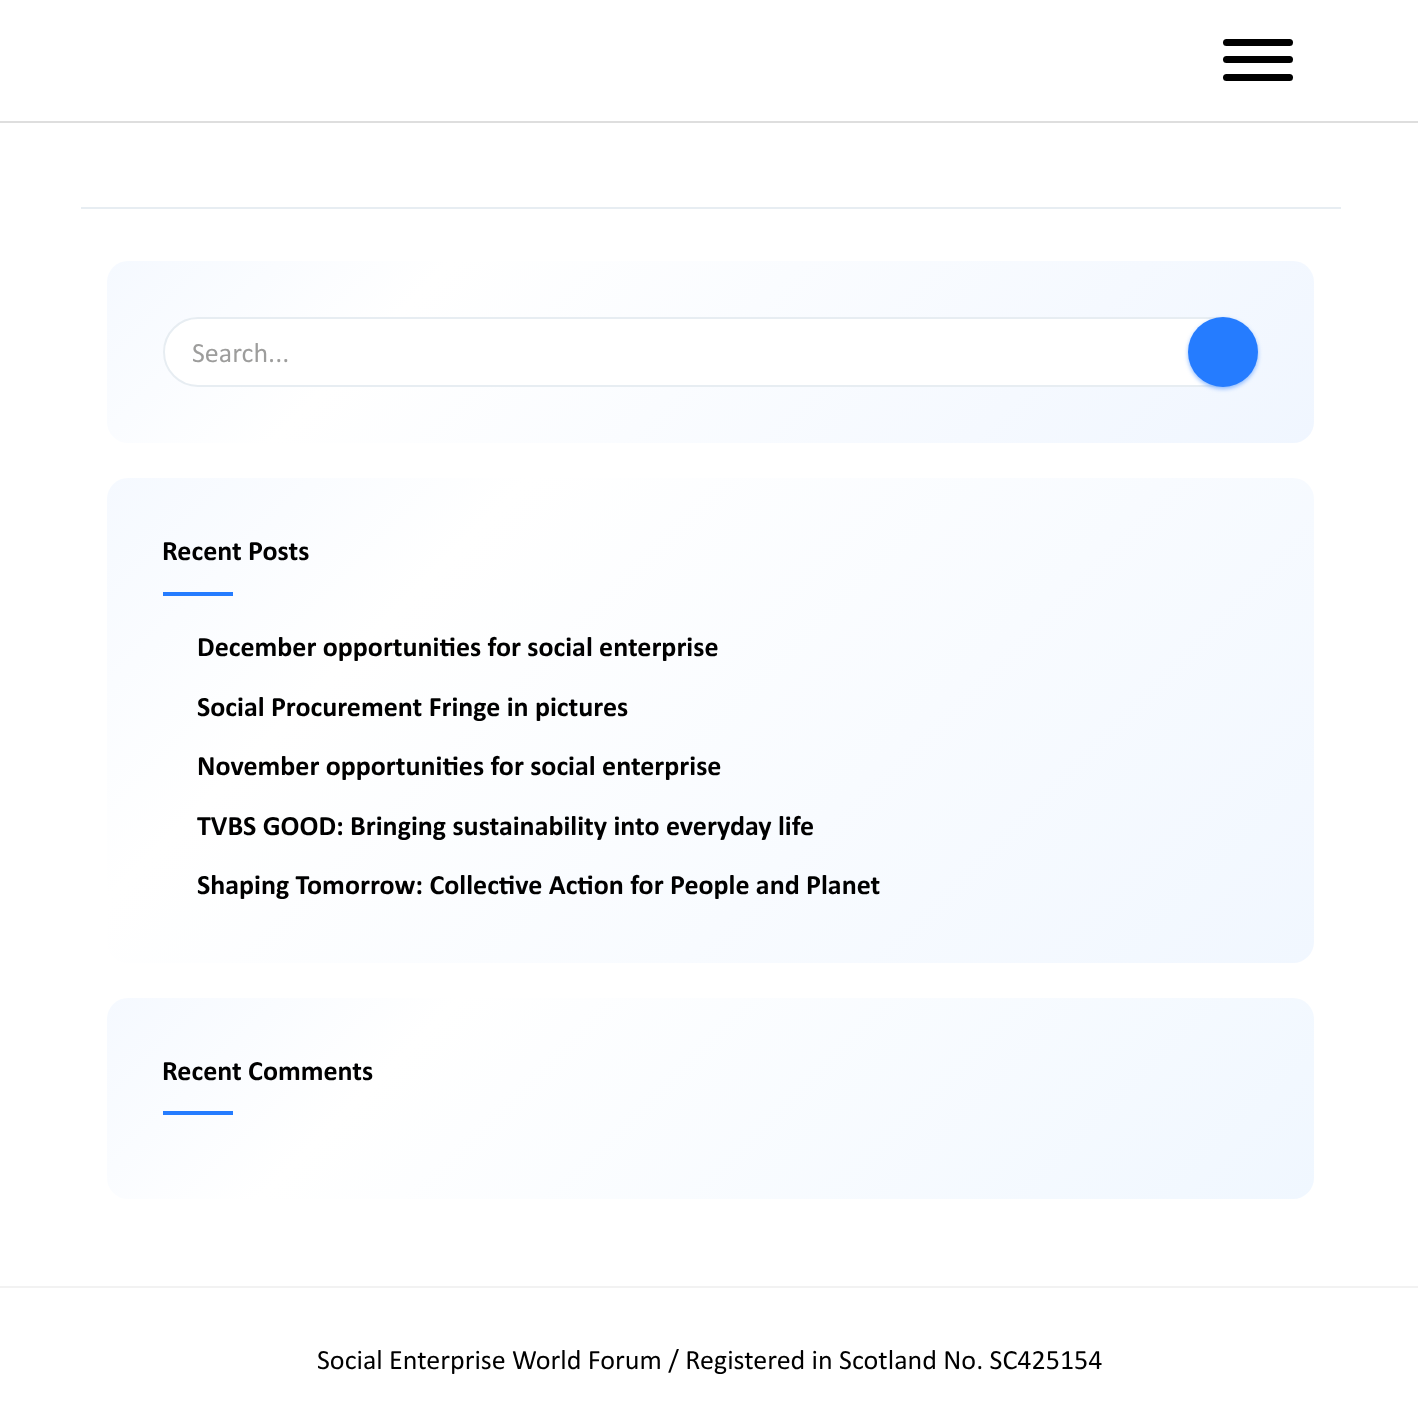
<svg xmlns="http://www.w3.org/2000/svg" width="1418" height="1405">
<defs>
<linearGradient id="g1" gradientUnits="userSpaceOnUse" x1="363" y1="4.4" x2="1058" y2="699"><stop offset="0" stop-color="#f5f9ff"/><stop offset="0.25" stop-color="#fff"/><stop offset="1" stop-color="#f0f6ff"/></linearGradient>
<linearGradient id="g2" gradientUnits="userSpaceOnUse" x1="287" y1="297" x2="1134" y2="1143"><stop offset="0" stop-color="#f5f9ff"/><stop offset="0.25" stop-color="#fff"/><stop offset="1" stop-color="#f1f7ff"/></linearGradient>
<linearGradient id="g3" gradientUnits="userSpaceOnUse" x1="358" y1="746" x2="1063" y2="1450"><stop offset="0" stop-color="#f5f9ff"/><stop offset="0.25" stop-color="#fff"/><stop offset="1" stop-color="#f0f7ff"/></linearGradient>
</defs>
<rect width="100%" height="100%" fill="#fff"/>
<rect y="121" width="1418" height="2" fill="#dedede"/>
<rect x="1223" y="56" width="70" height="7" rx="3.5" fill="#000"/>
<rect x="1223" y="39" width="70" height="7" rx="3.5" fill="#000"/>
<rect x="1223" y="74" width="70" height="7" rx="3.5" fill="#000"/>
<rect x="81" y="207" width="1260" height="2" fill="#e7edf2"/>
<rect x="107" y="261" width="1207" height="182" rx="21" fill="url(#g1)"/>
<rect x="164" y="318" width="1093" height="68" rx="34" fill="#fff" stroke="#e7edf2" stroke-width="2"/>
<text x="192" y="362" style="font-family:Calibri;font-size:28px;fill:#9d9d9c">Search...</text>
<rect x="1188" y="319" width="70" height="70" rx="35" fill="#257cff80" filter="blur(2px)"/>
<circle cx="1223" cy="352" r="35" fill="#257cff"/>
<rect x="107" y="478" width="1207" height="485" rx="21" fill="url(#g2)"/>
<text x="162" y="560" style="font-family:Calibri;font-size:28px;font-weight:bold;fill:#000">Recent Posts</text>
<rect x="163" y="592" width="70" height="4" fill="#257cff"/>
<text x="197" y="656" style="font-family:Calibri;font-size:28px;font-weight:bold;fill:#000">December opportunities for social enterprise</text>
<text x="197" y="716" style="font-family:Calibri;font-size:28px;font-weight:bold;fill:#000">Social Procurement Fringe in pictures</text>
<text x="197" y="775" style="font-family:Calibri;font-size:28px;font-weight:bold;fill:#000">November opportunities for social enterprise</text>
<text x="197" y="835" style="font-family:Calibri;font-size:28px;font-weight:bold;fill:#000">TVBS GOOD: Bringing sustainability into everyday life</text>
<text x="197" y="894" style="font-family:Calibri;font-size:28px;font-weight:bold;fill:#000">Shaping Tomorrow: Collective Action for People and Planet</text>
<rect x="107" y="998" width="1207" height="201" rx="21" fill="url(#g3)"/>
<text x="162" y="1080" style="font-family:Calibri;font-size:28px;font-weight:bold;fill:#000">Recent Comments</text>
<rect x="163" y="1111" width="70" height="4" fill="#257cff"/>
<rect y="1286" width="1418" height="2" fill="#f2f2f2"/>
<text x="317" y="1369" style="font-family:Calibri;font-size:28px;fill:#000">Social Enterprise World Forum / Registered in Scotland No. SC425154</text>
</svg>
